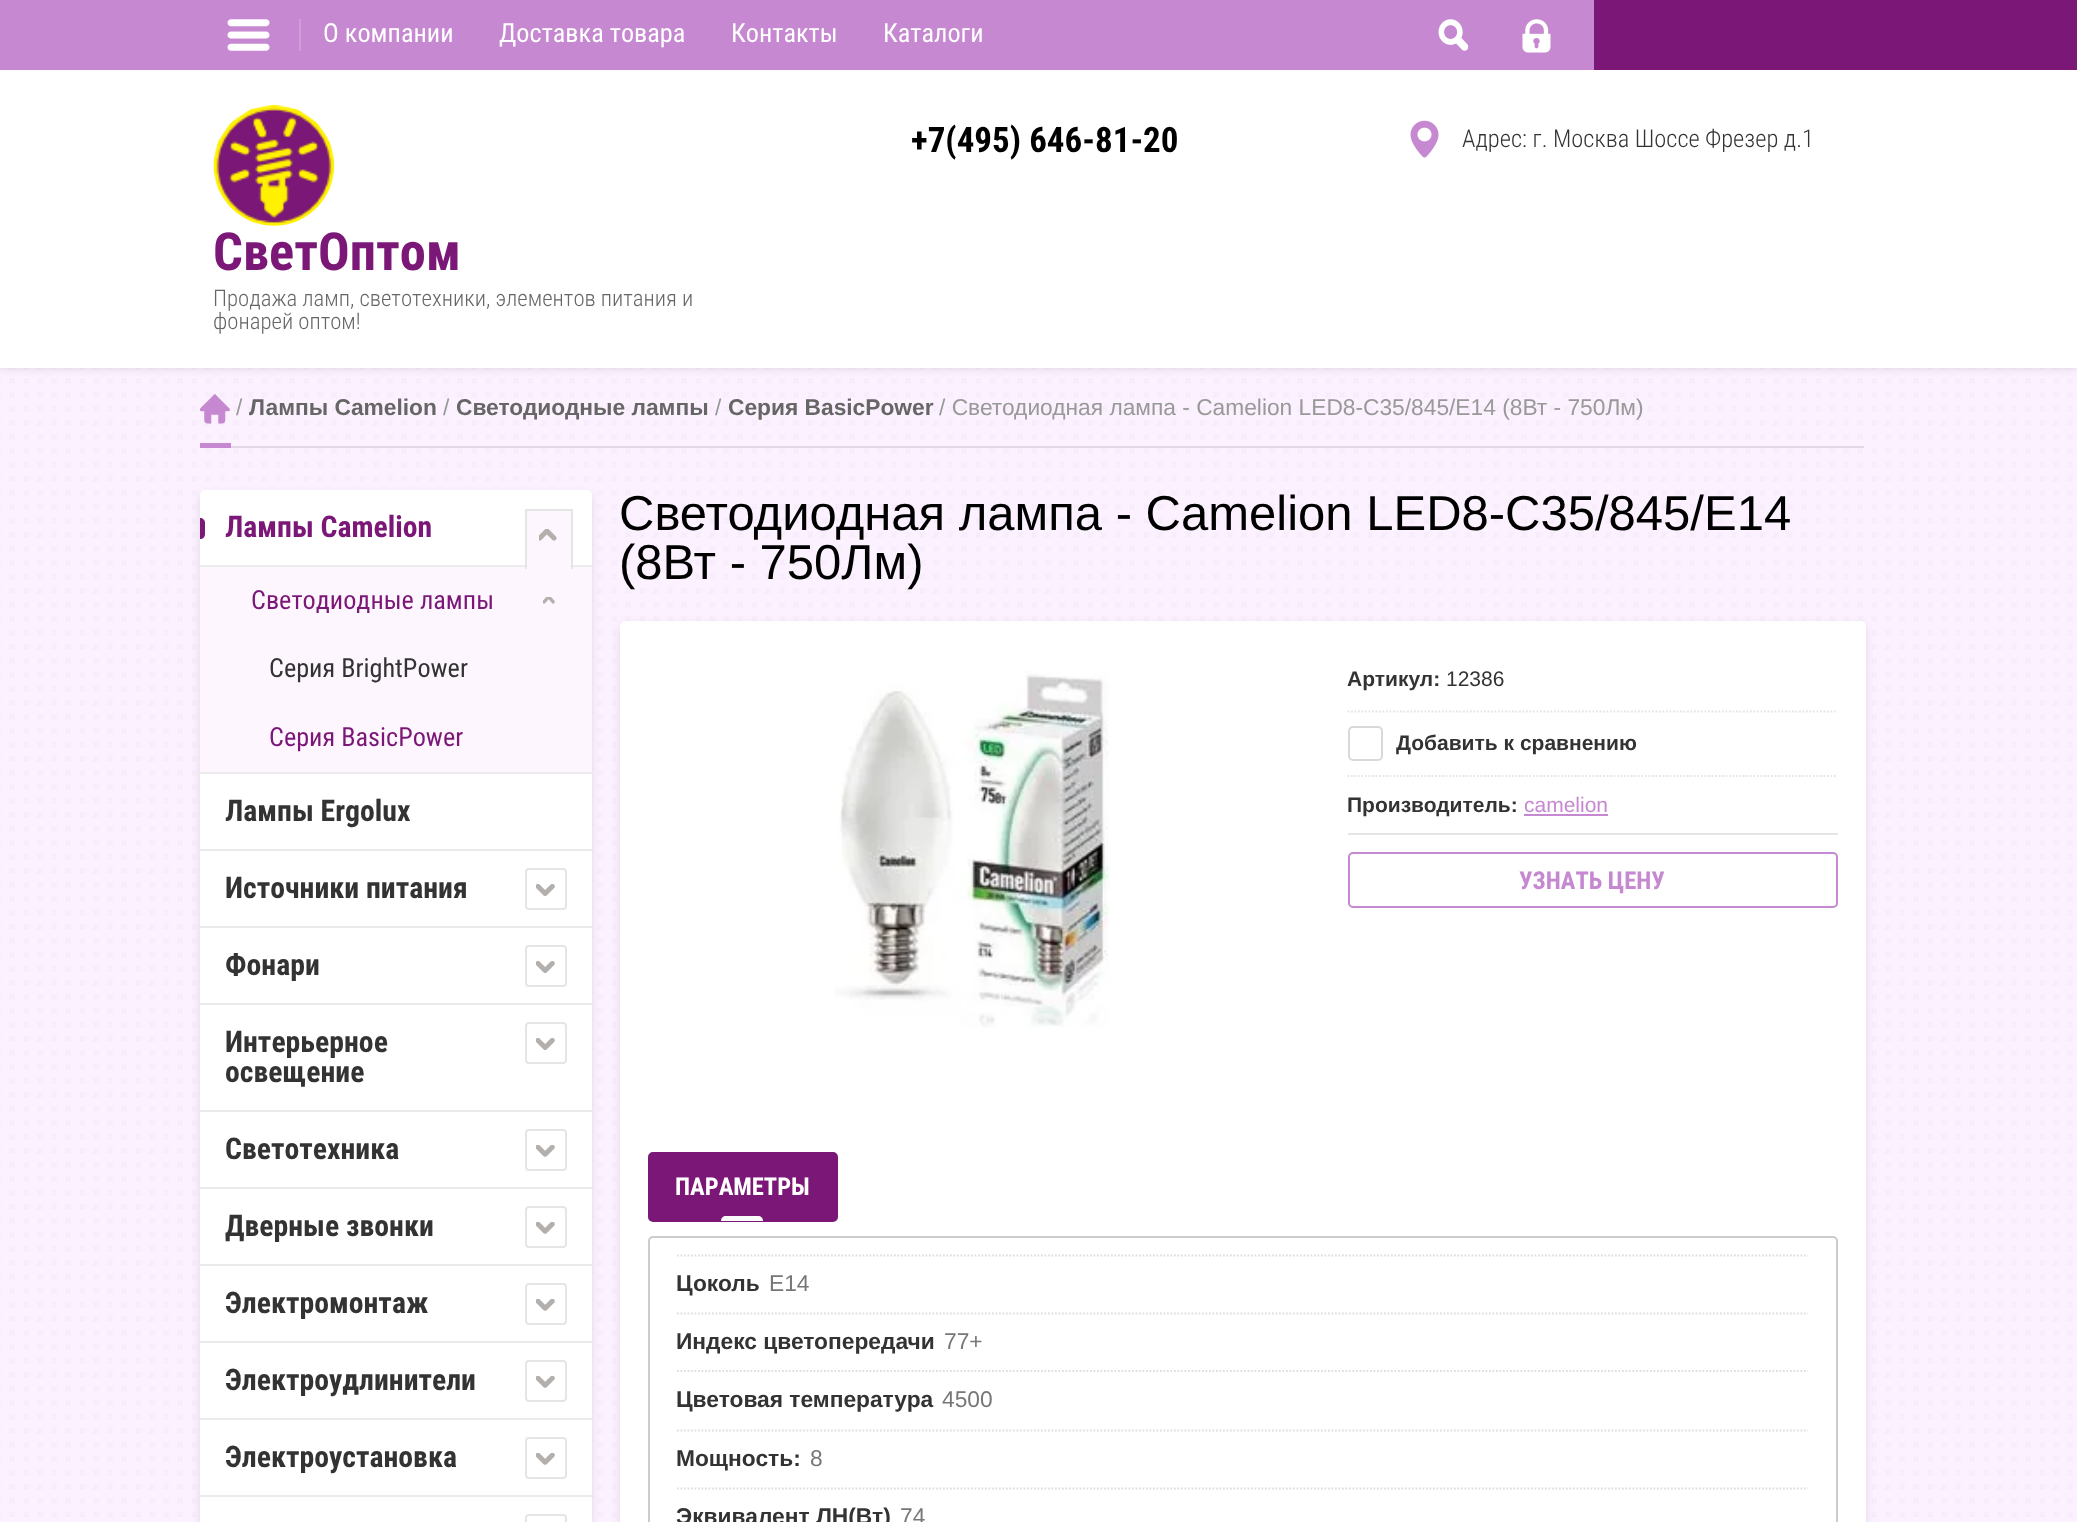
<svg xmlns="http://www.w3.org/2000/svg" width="2077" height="1522">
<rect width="100%" height="100%" fill="#fcf1fe"/>
<image x="0" y="368" width="2073" height="1149" href="media/1.png"/>
<rect y="72" width="2077" height="297" fill="#0000001a" filter="blur(4.5px)"/>
<rect width="1594" height="70" fill="#c688d1"/>
<image x="227" y="19" width="43" height="32" href="media/2.png"/>
<rect x="299" y="19" width="2" height="32" fill="#d09cd9"/>
<text x="323" y="42" style="font-family:Roboto Condensed;font-size:26.25px;fill:#fff">О компании</text>
<text x="499" y="42" style="font-family:Roboto Condensed;font-size:26.25px;fill:#fff">Доставка товара</text>
<text x="731" y="42" style="font-family:Roboto Condensed;font-size:26.25px;fill:#fff">Контакты</text>
<text x="883" y="42" style="font-family:Roboto Condensed;font-size:26.25px;fill:#fff">Каталоги</text>
<image x="1438" y="19" width="31" height="32" href="media/3.png"/>
<image x="1522" y="19" width="29" height="34" href="media/4.png"/>
<rect x="1594" width="483" height="70" fill="#7a1777"/>
<rect y="70" width="2077" height="298" fill="#fff"/>
<text x="911" y="152" style="font-family:Roboto Condensed;font-size:35px;font-weight:bold;fill:#000">+7(495) 646-81-20</text>
<image x="1410" y="120" width="29" height="38" href="media/5.png"/>
<text x="1462" y="147" style="font-family:Roboto Condensed;font-size:24.5px;font-weight:300;fill:#333">Адрес: г. Москва Шоссе Фрезер д.1</text>
<image x="213" y="105" width="122" height="121" href="media/6.png"/>
<text x="213" y="270" style="font-family:Roboto Condensed;font-size:52.5px;font-weight:bold;fill:#7a1777">СветОптом</text>
<text x="213" y="306" style="font-family:Roboto Condensed;font-size:22.75px;font-weight:300;fill:#666">Продажа ламп, светотехники, элементов питания и</text>
<text x="213" y="329" style="font-family:Roboto Condensed;font-size:22.75px;font-weight:300;fill:#666">фонарей оптом!</text>
<rect x="231" y="446" width="1633" height="2" fill="#e3d9e5"/>
<image x="200" y="394" width="30" height="30" href="media/7.png"/>
<text x="236" y="415" style="font-family:Liberation Sans;font-size:22.75px;fill:#999">/</text>
<text x="249" y="415" style="font-family:Liberation Sans;font-size:22.75px;font-weight:bold;fill:#666">Лампы Camelion</text>
<text x="443" y="415" style="font-family:Liberation Sans;font-size:22.75px;fill:#999">/</text>
<text x="456" y="415" style="font-family:Liberation Sans;font-size:22.75px;font-weight:bold;fill:#666">Светодиодные лампы</text>
<text x="715" y="415" style="font-family:Liberation Sans;font-size:22.75px;fill:#999">/</text>
<text x="728" y="415" style="font-family:Liberation Sans;font-size:22.75px;font-weight:bold;fill:#666">Серия BasicPower</text>
<text x="939" y="415" style="font-family:Liberation Sans;font-size:22.75px;fill:#999">/ Светодиодная лампа - Camelion LED8-C35/845/E14 (8Вт - 750Лм)</text>
<rect x="200" y="443" width="31" height="5" fill="#c688d1"/>
<rect x="200" y="494" width="392" height="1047" rx="5" fill="#0000001a" filter="blur(4.5px)"/>
<rect x="200" y="490" width="392" height="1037" rx="5" fill="#fff"/>
<path d="M200 518c3 0 5 2 5 5v11c0 3-2 5-5 5z" fill="#7a1777"/>
<text x="225" y="537" style="font-family:Roboto Condensed;font-size:29.75px;font-weight:bold;fill:#7a1777">Лампы Camelion</text>
<rect x="200" y="565" width="392" height="2" fill="#ebebeb"/>
<rect x="527" y="511" width="44" height="56" fill="#fdf6fe"/>
<image x="539" y="529" width="18" height="12" href="media/8.png"/>
<rect x="200" y="567" width="392" height="205" fill="#fdf6fe"/>
<rect x="525" y="509" width="2" height="60" fill="#e5e5e5"/>
<rect x="525" y="509" width="47" height="2" fill="#e5e5e5"/>
<rect x="571" y="509" width="2" height="60" fill="#e5e5e5"/>
<text x="251" y="609" style="font-family:Roboto Condensed;font-size:26.25px;fill:#7a1777">Светодиодные лампы</text>
<image x="543" y="597" width="12" height="7" href="media/9.png"/>
<text x="269" y="677" style="font-family:Roboto Condensed;font-size:26.25px;fill:#333">Серия BrightPower</text>
<text x="269" y="746" style="font-family:Roboto Condensed;font-size:26.25px;fill:#7a1777">Серия BasicPower</text>
<rect x="200" y="772" width="392" height="2" fill="#ebebeb"/>
<text x="225" y="821" style="font-family:Roboto Condensed;font-size:29.75px;font-weight:bold;fill:#333">Лампы Ergolux</text>
<rect x="200" y="849" width="392" height="2" fill="#ebebeb"/>
<text x="225" y="898" style="font-family:Roboto Condensed;font-size:29.75px;font-weight:bold;fill:#333">Источники питания</text>
<image x="536" y="884" width="19" height="12" href="media/10.png"/>
<rect x="526" y="869" width="40" height="40" rx="3" fill="none" stroke="#e5e5e5" stroke-width="2"/>
<rect x="200" y="926" width="392" height="2" fill="#ebebeb"/>
<text x="225" y="975" style="font-family:Roboto Condensed;font-size:29.75px;font-weight:bold;fill:#333">Фонари</text>
<image x="536" y="961" width="19" height="12" href="media/10.png"/>
<rect x="526" y="946" width="40" height="40" rx="3" fill="none" stroke="#e5e5e5" stroke-width="2"/>
<rect x="200" y="1003" width="392" height="2" fill="#ebebeb"/>
<text x="225" y="1052" style="font-family:Roboto Condensed;font-size:29.75px;font-weight:bold;fill:#333">Интерьерное</text>
<text x="225" y="1082" style="font-family:Roboto Condensed;font-size:29.75px;font-weight:bold;fill:#333">освещение</text>
<image x="536" y="1038" width="19" height="12" href="media/10.png"/>
<rect x="526" y="1023" width="40" height="40" rx="3" fill="none" stroke="#e5e5e5" stroke-width="2"/>
<rect x="200" y="1110" width="392" height="2" fill="#ebebeb"/>
<text x="225" y="1159" style="font-family:Roboto Condensed;font-size:29.75px;font-weight:bold;fill:#333">Светотехника</text>
<image x="536" y="1145" width="19" height="12" href="media/11.png"/>
<rect x="526" y="1130" width="40" height="40" rx="3" fill="none" stroke="#e5e5e5" stroke-width="2"/>
<rect x="200" y="1187" width="392" height="2" fill="#ebebeb"/>
<text x="225" y="1236" style="font-family:Roboto Condensed;font-size:29.75px;font-weight:bold;fill:#333">Дверные звонки</text>
<image x="536" y="1222" width="19" height="12" href="media/11.png"/>
<rect x="526" y="1207" width="40" height="40" rx="3" fill="none" stroke="#e5e5e5" stroke-width="2"/>
<rect x="200" y="1264" width="392" height="2" fill="#ebebeb"/>
<text x="225" y="1313" style="font-family:Roboto Condensed;font-size:29.75px;font-weight:bold;fill:#333">Электромонтаж</text>
<image x="536" y="1299" width="19" height="12" href="media/11.png"/>
<rect x="526" y="1284" width="40" height="40" rx="3" fill="none" stroke="#e5e5e5" stroke-width="2"/>
<rect x="200" y="1341" width="392" height="2" fill="#ebebeb"/>
<text x="225" y="1390" style="font-family:Roboto Condensed;font-size:29.75px;font-weight:bold;fill:#333">Электроудлинители</text>
<image x="536" y="1376" width="19" height="12" href="media/11.png"/>
<rect x="526" y="1361" width="40" height="40" rx="3" fill="none" stroke="#e5e5e5" stroke-width="2"/>
<rect x="200" y="1418" width="392" height="2" fill="#ebebeb"/>
<text x="225" y="1467" style="font-family:Roboto Condensed;font-size:29.75px;font-weight:bold;fill:#333">Электроустановка</text>
<image x="536" y="1453" width="19" height="12" href="media/11.png"/>
<rect x="526" y="1438" width="40" height="40" rx="3" fill="none" stroke="#e5e5e5" stroke-width="2"/>
<rect x="200" y="1495" width="392" height="2" fill="#ebebeb"/>
<rect x="526" y="1515" width="40" height="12" rx="3" fill="none" stroke="#e5e5e5" stroke-width="2"/>
<text x="619" y="530" style="font-family:Liberation Sans;font-size:49px;fill:#000">Светодиодная лампа - Camelion LED8-C35/845/E14</text>
<text x="619" y="579" style="font-family:Liberation Sans;font-size:49px;fill:#000">(8Вт - 750Лм)</text>
<rect x="620" y="625" width="1246" height="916" rx="5" fill="#0000001a" filter="blur(4.5px)"/>
<rect x="620" y="621" width="1246" height="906" rx="5" fill="#fff"/>
<image x="835" y="671" width="275" height="357" href="media/12.png"/>
<text x="1347" y="686" style="font-family:Liberation Sans;font-size:21px;font-weight:bold;fill:#333">Артикул:</text>
<text x="1446" y="686" style="font-family:Liberation Sans;font-size:21px;fill:#333">12386</text>
<path d="M1347.5 711.5h490" fill="none" stroke="#e5e5e5" stroke-width="1.8" stroke-dasharray="1.75 1.75"/>
<rect x="1349" y="727" width="33" height="33" rx="4" fill="none" stroke="#d9d9d9" stroke-width="2"/>
<text x="1396" y="750" style="font-family:Liberation Sans;font-size:21px;font-weight:bold;fill:#333">Добавить к сравнению</text>
<rect x="1348" y="833" width="490" height="2" fill="#e5e5e5"/>
<path d="M1347.5 776h490" fill="none" stroke="#e5e5e5" stroke-width="1.8" stroke-dasharray="1.75 1.75"/>
<text x="1347" y="812" style="font-family:Liberation Sans;font-size:21px;font-weight:bold;fill:#333">Производитель:</text>
<text x="1524" y="812" style="font-family:Liberation Sans;font-size:21px;fill:#c688d1">camelion</text>
<rect x="1524" y="814" width="84" height="2" fill="#c688d1"/>
<rect x="1349" y="853" width="488" height="54" rx="4" fill="none" stroke="#c688d1" stroke-width="2"/>
<text x="1519" y="889" style="font-family:Roboto Condensed;font-size:24.5px;font-weight:bold;fill:#c688d1">УЗНАТЬ ЦЕНУ</text>
<rect x="649" y="1153" width="188" height="68" rx="4" fill="#7a1777" stroke="#7a1777" stroke-width="2"/>
<text x="675" y="1195" style="font-family:Roboto Condensed;font-size:24.5px;font-weight:bold;fill:#fff">ПАРАМЕТРЫ</text>
<path d="M726 1216h32c3 0 5 2 5 5h-42c0-3 2-5 5-5z" fill="#fafafa"/>
<rect x="649" y="1237" width="1188" height="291" rx="4" fill="none" stroke="#ccc" stroke-width="2"/>
<path d="M677 1255.5h1131" fill="none" stroke="#dedede" stroke-width="1.8" stroke-dasharray="1.75 1.75"/>
<text x="676" y="1291" style="font-family:Liberation Sans;font-size:22.75px;font-weight:bold;fill:#333">Цоколь</text>
<text x="769" y="1291" style="font-family:Liberation Sans;font-size:22.75px;fill:#777">E14</text>
<path d="M677 1313.5h1131" fill="none" stroke="#dedede" stroke-width="1.8" stroke-dasharray="1.75 1.75"/>
<text x="676" y="1349" style="font-family:Liberation Sans;font-size:22.75px;font-weight:bold;fill:#333">Индекс цветопередачи</text>
<text x="944" y="1349" style="font-family:Liberation Sans;font-size:22.75px;fill:#777">77+</text>
<path d="M677 1371h1131" fill="none" stroke="#dedede" stroke-width="1.8" stroke-dasharray="1.75 1.75"/>
<text x="676" y="1407" style="font-family:Liberation Sans;font-size:22.75px;font-weight:bold;fill:#333">Цветовая температура</text>
<text x="942" y="1407" style="font-family:Liberation Sans;font-size:22.75px;fill:#777">4500</text>
<path d="M677 1430.5h1131" fill="none" stroke="#dedede" stroke-width="1.8" stroke-dasharray="1.75 1.75"/>
<text x="676" y="1466" style="font-family:Liberation Sans;font-size:22.75px;font-weight:bold;fill:#333">Мощность:</text>
<text x="810" y="1466" style="font-family:Liberation Sans;font-size:22.75px;fill:#777">8</text>
<path d="M677 1488.5h1131" fill="none" stroke="#dedede" stroke-width="1.8" stroke-dasharray="1.75 1.75"/>
<text x="676" y="1524" style="font-family:Liberation Sans;font-size:22.75px;font-weight:bold;fill:#333">Эквивалент ЛН(Вт)</text>
<text x="900" y="1524" style="font-family:Liberation Sans;font-size:22.75px;fill:#777">74</text>
</svg>
